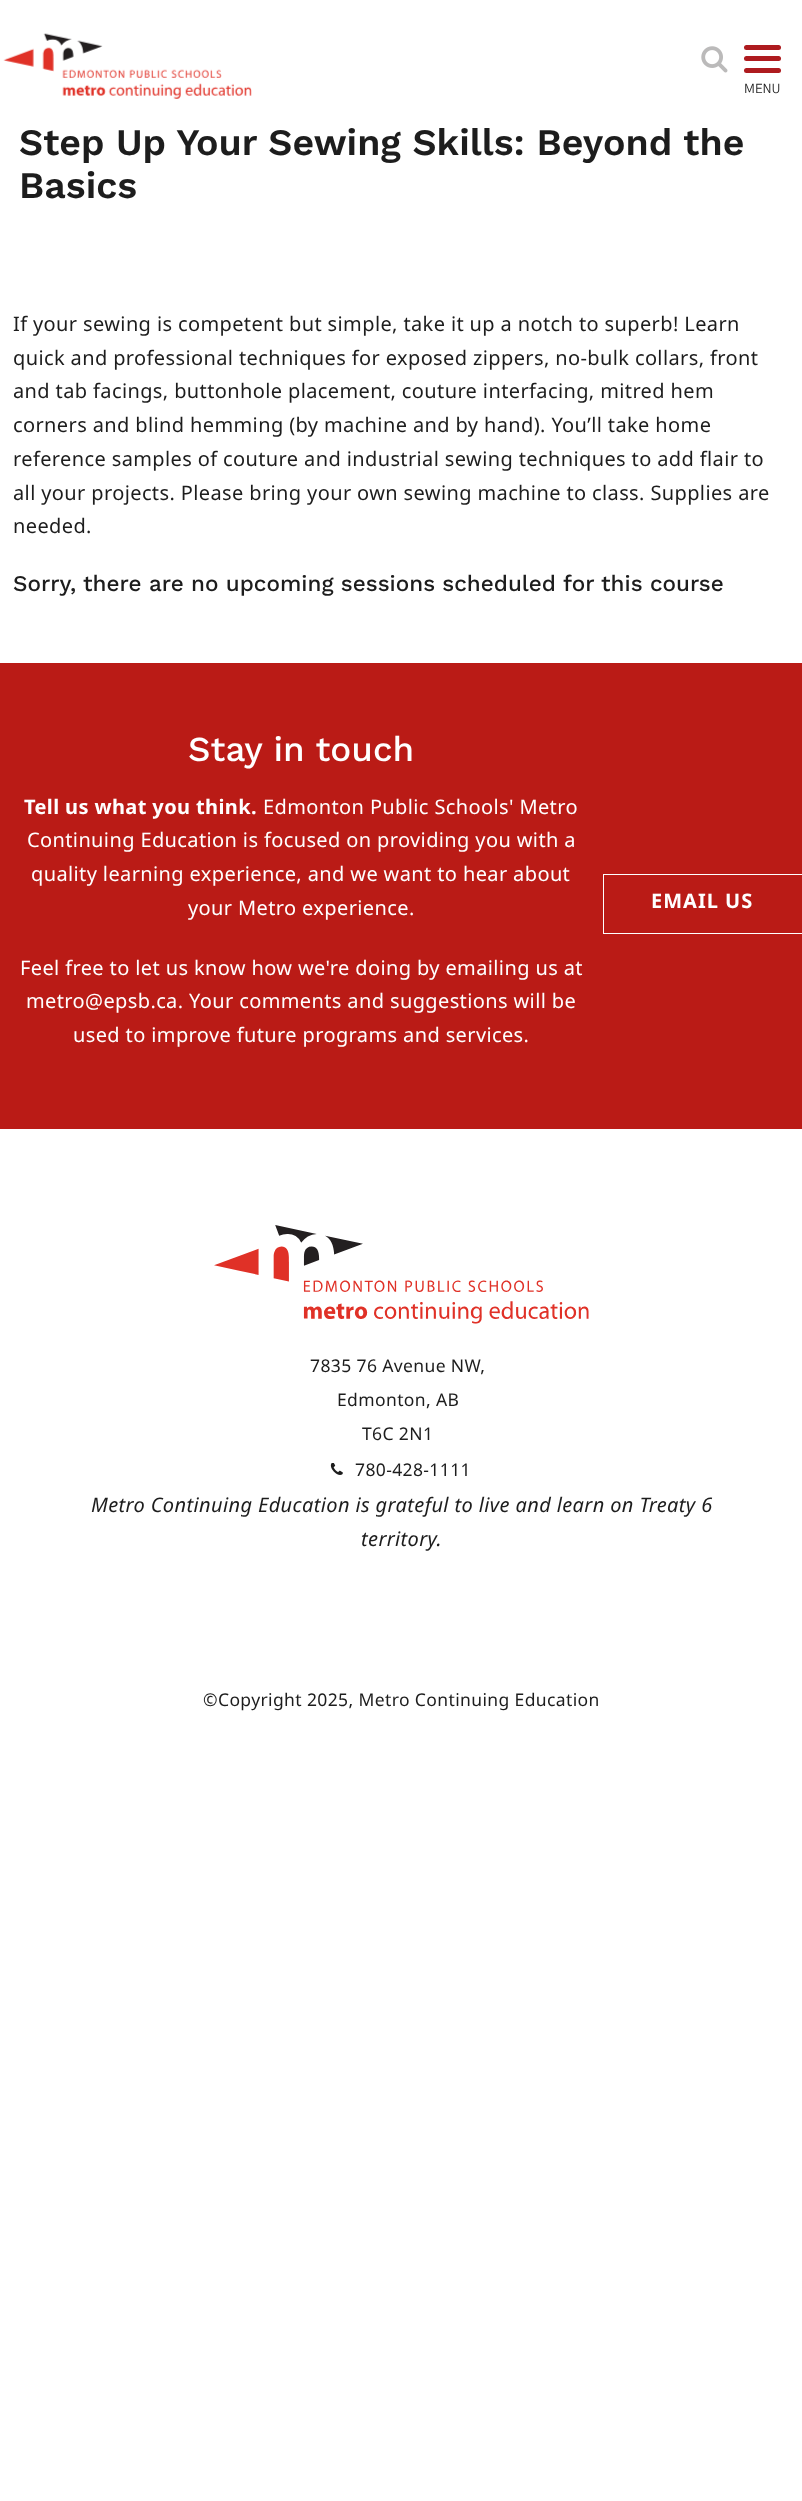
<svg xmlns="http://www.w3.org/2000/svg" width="802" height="2501">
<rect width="100%" height="100%" fill="#fff"/>
<image x="3" y="33" width="249" height="66" href="media/1.png"/>
<image x="701" y="46" width="27" height="27" href="media/2.png"/>
<rect x="744" y="45" width="37" height="5" rx="2.5" fill="#ae1b1f"/>
<rect x="744" y="56" width="37" height="5" rx="2.5" fill="#ae1b1f"/>
<rect x="744" y="68" width="37" height="5" rx="2.5" fill="#ae1b1f"/>
<text x="744" y="93" style="font-family:'Gothic A1';font-size:12.5px;fill:#1d1d1d">MENU</text>
<text x="19" y="155" style="font-family:Work Sans;font-size:37.5px;font-weight:600;fill:#1d1d1d">Step Up Your Sewing Skills: Beyond the</text>
<text x="19" y="198" style="font-family:Work Sans;font-size:37.5px;font-weight:600;fill:#1d1d1d">Basics</text>
<text x="13" y="331" style="font-family:Noto Sans;font-size:20px;letter-spacing:0.38px;fill:#1d1d1d">If your sewing is competent but simple, take it up a notch to superb! Learn</text>
<text x="13" y="365" style="font-family:Noto Sans;font-size:20px;letter-spacing:0.38px;fill:#1d1d1d">quick and professional techniques for exposed zippers, no-bulk collars, front</text>
<text x="13" y="398" style="font-family:Noto Sans;font-size:20px;letter-spacing:0.38px;fill:#1d1d1d">and tab facings, buttonhole placement, couture interfacing, mitred hem</text>
<text x="13" y="432" style="font-family:Noto Sans;font-size:20px;letter-spacing:0.38px;fill:#1d1d1d">corners and blind hemming (by machine and by hand). You’ll take home</text>
<text x="13" y="466" style="font-family:Noto Sans;font-size:20px;letter-spacing:0.38px;fill:#1d1d1d">reference samples of couture and industrial sewing techniques to add flair to</text>
<text x="13" y="500" style="font-family:Noto Sans;font-size:20px;letter-spacing:0.38px;fill:#1d1d1d">all your projects. Please bring your own sewing machine to class. Supplies are</text>
<text x="13" y="533" style="font-family:Noto Sans;font-size:20px;letter-spacing:0.38px;fill:#1d1d1d">needed.</text>
<text x="13" y="591" style="font-family:Work Sans;font-size:22.5px;font-weight:500;fill:#1d1d1d">Sorry, there are no upcoming sessions scheduled for this course</text>
<rect y="663" width="802" height="466" fill="#ba1b16"/>
<text x="188" y="761" style="font-family:Work Sans;font-size:35px;font-weight:500;fill:#fff">Stay in touch</text>
<text x="24" y="814" style="font-family:Noto Sans;font-size:20px;font-weight:bold;letter-spacing:0.38px;fill:#fff">Tell us what you think.</text>
<text x="263" y="814" style="font-family:Noto Sans;font-size:20px;letter-spacing:0.38px;fill:#fff">Edmonton Public Schools' Metro</text>
<text x="27" y="847" style="font-family:Noto Sans;font-size:20px;letter-spacing:0.38px;fill:#fff">Continuing Education is focused on providing you with a</text>
<text x="31" y="881" style="font-family:Noto Sans;font-size:20px;letter-spacing:0.38px;fill:#fff">quality learning experience, and we want to hear about</text>
<text x="188" y="915" style="font-family:Noto Sans;font-size:20px;letter-spacing:0.38px;fill:#fff">your Metro experience.</text>
<text x="20" y="975" style="font-family:Noto Sans;font-size:20px;letter-spacing:0.38px;fill:#fff">Feel free to let us know how we're doing by emailing us at</text>
<text x="26" y="1008" style="font-family:Noto Sans;font-size:20px;letter-spacing:0.38px;fill:#fff">metro@epsb.ca. Your comments and suggestions will be</text>
<text x="73" y="1042" style="font-family:Noto Sans;font-size:20px;letter-spacing:0.38px;fill:#fff">used to improve future programs and services.</text>
<rect x="603.5" y="874.5" width="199" height="59" fill="none" stroke="#fff"/>
<text x="651" y="908" style="font-family:Noto Sans;font-size:20px;font-weight:bold;letter-spacing:1px;fill:#fff">EMAIL US</text>
<image x="214" y="1225" width="375" height="99" href="media/3.png"/>
<text x="310" y="1372" style="font-family:Noto Sans;font-size:17.5px;letter-spacing:0.38px;fill:#1d1d1d">7835 76 Avenue NW,</text>
<text x="337" y="1406" style="font-family:Noto Sans;font-size:17.5px;letter-spacing:0.38px;fill:#1d1d1d">Edmonton, AB</text>
<text x="362" y="1440" style="font-family:Noto Sans;font-size:17.5px;letter-spacing:0.38px;fill:#1d1d1d">T6C 2N1</text>
<image x="330" y="1463" width="13" height="12" href="media/4.png"/>
<text x="355" y="1476" style="font-family:Noto Sans;font-size:17.5px;letter-spacing:0.38px;fill:#1d1d1d">780-428-1111</text>
<text x="91" y="1512" style="font-family:Noto Sans;font-size:20px;font-style:italic;letter-spacing:0.38px;fill:#1d1d1d">Metro Continuing Education is grateful to live and learn on Treaty 6</text>
<text x="361" y="1546" style="font-family:Noto Sans;font-size:20px;font-style:italic;letter-spacing:0.38px;fill:#1d1d1d">territory.</text>
<text x="203" y="1706" style="font-family:Noto Sans;font-size:17.5px;letter-spacing:0.38px;fill:#1d1d1d">©Copyright 2025, Metro Continuing Education</text>
</svg>
